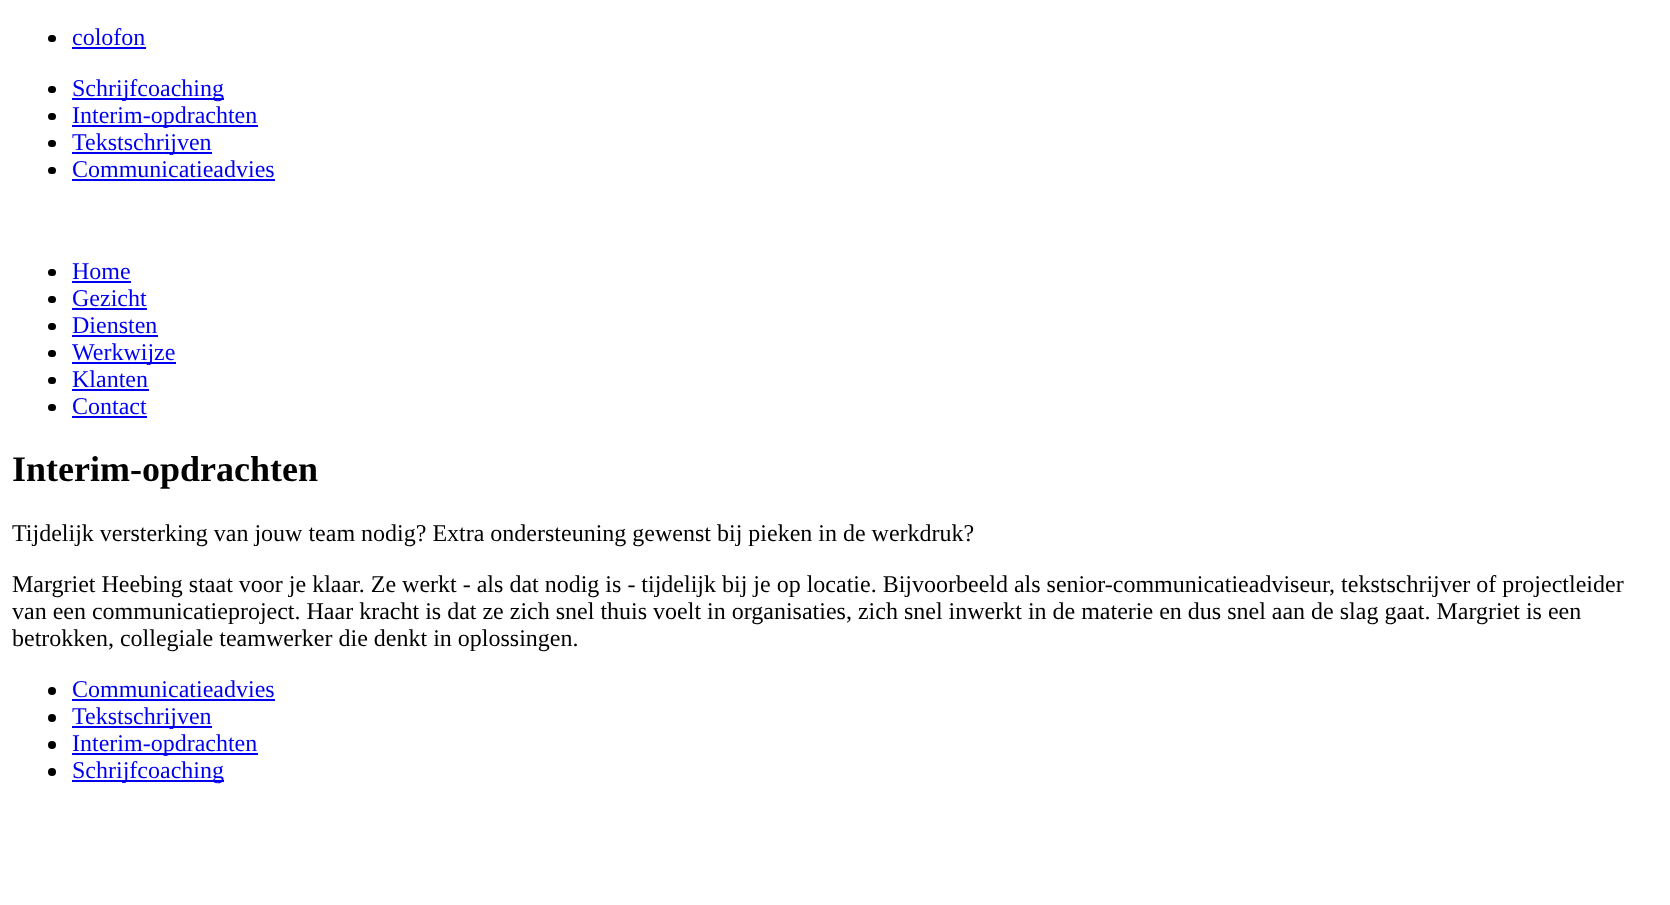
<svg xmlns="http://www.w3.org/2000/svg" width="1670" height="905">
<rect width="100%" height="100%" fill="#fff"/>
<rect x="48" y="35" width="8" height="7" rx="3.5" fill="#000"/>
<text x="72" y="45" style="font-family:Liberation Serif;font-size:24px;fill:#00e">colofon</text>
<rect x="72" y="47" width="74" height="2" fill="#00e"/>
<rect x="48" y="86" width="8" height="7" rx="3.5" fill="#000"/>
<rect x="72" y="98" width="152" height="2" fill="#00e"/>
<text x="72" y="96" style="font-family:Liberation Serif;font-size:24px;fill:#00e">Schrijfcoaching</text>
<rect x="48" y="113" width="8" height="7" rx="3.5" fill="#000"/>
<rect x="72" y="125" width="186" height="2" fill="#00e"/>
<text x="72" y="123" style="font-family:Liberation Serif;font-size:24px;fill:#00e">Interim-opdrachten</text>
<rect x="48" y="140" width="8" height="7" rx="3.5" fill="#000"/>
<rect x="72" y="152" width="140" height="2" fill="#00e"/>
<text x="72" y="150" style="font-family:Liberation Serif;font-size:24px;fill:#00e">Tekstschrijven</text>
<rect x="48" y="167" width="8" height="7" rx="3.5" fill="#000"/>
<text x="72" y="177" style="font-family:Liberation Serif;font-size:24px;fill:#00e">Communicatieadvies</text>
<rect x="72" y="179" width="203" height="2" fill="#00e"/>
<rect x="48" y="269" width="8" height="7" rx="3.5" fill="#000"/>
<text x="72" y="279" style="font-family:Liberation Serif;font-size:24px;fill:#00e">Home</text>
<rect x="72" y="281" width="59" height="2" fill="#00e"/>
<rect x="48" y="296" width="8" height="7" rx="3.5" fill="#000"/>
<text x="72" y="306" style="font-family:Liberation Serif;font-size:24px;fill:#00e">Gezicht</text>
<rect x="72" y="308" width="75" height="2" fill="#00e"/>
<rect x="48" y="323" width="8" height="7" rx="3.5" fill="#000"/>
<text x="72" y="333" style="font-family:Liberation Serif;font-size:24px;fill:#00e">Diensten</text>
<rect x="72" y="335" width="86" height="2" fill="#00e"/>
<rect x="48" y="350" width="8" height="7" rx="3.5" fill="#000"/>
<rect x="72" y="362" width="104" height="2" fill="#00e"/>
<text x="72" y="360" style="font-family:Liberation Serif;font-size:24px;fill:#00e">Werkwijze</text>
<rect x="48" y="377" width="8" height="7" rx="3.5" fill="#000"/>
<text x="72" y="387" style="font-family:Liberation Serif;font-size:24px;fill:#00e">Klanten</text>
<rect x="72" y="389" width="77" height="2" fill="#00e"/>
<rect x="48" y="404" width="8" height="7" rx="3.5" fill="#000"/>
<text x="72" y="414" style="font-family:Liberation Serif;font-size:24px;fill:#00e">Contact</text>
<rect x="72" y="416" width="75" height="2" fill="#00e"/>
<text x="12" y="481" style="font-family:Liberation Serif;font-size:36px;font-weight:bold;fill:#000">Interim-opdrachten</text>
<text x="12" y="541" style="font-family:Liberation Serif;font-size:24px;fill:#000">Tijdelijk versterking van jouw team nodig? Extra ondersteuning gewenst bij pieken in de werkdruk?</text>
<text x="12" y="592" style="font-family:Liberation Serif;font-size:24px;fill:#000">Margriet Heebing staat voor je klaar. Ze werkt - als dat nodig is - tijdelijk bij je op locatie. Bijvoorbeeld als senior-communicatieadviseur, tekstschrijver of projectleider</text>
<text x="12" y="619" style="font-family:Liberation Serif;font-size:24px;fill:#000">van een communicatieproject. Haar kracht is dat ze zich snel thuis voelt in organisaties, zich snel inwerkt in de materie en dus snel aan de slag gaat. Margriet is een</text>
<text x="12" y="646" style="font-family:Liberation Serif;font-size:24px;fill:#000">betrokken, collegiale teamwerker die denkt in oplossingen.</text>
<circle cx="52" cy="691" r="4" fill="#000"/>
<text x="72" y="697" style="font-family:Liberation Serif;font-size:24px;fill:#00e">Communicatieadvies</text>
<rect x="72" y="699" width="203" height="2" fill="#00e"/>
<circle cx="52" cy="718" r="4" fill="#000"/>
<rect x="72" y="726" width="140" height="2" fill="#00e"/>
<text x="72" y="724" style="font-family:Liberation Serif;font-size:24px;fill:#00e">Tekstschrijven</text>
<circle cx="52" cy="745" r="4" fill="#000"/>
<rect x="72" y="753" width="186" height="2" fill="#00e"/>
<text x="72" y="751" style="font-family:Liberation Serif;font-size:24px;fill:#00e">Interim-opdrachten</text>
<circle cx="52" cy="772" r="4" fill="#000"/>
<rect x="72" y="780" width="152" height="2" fill="#00e"/>
<text x="72" y="778" style="font-family:Liberation Serif;font-size:24px;fill:#00e">Schrijfcoaching</text>
</svg>
